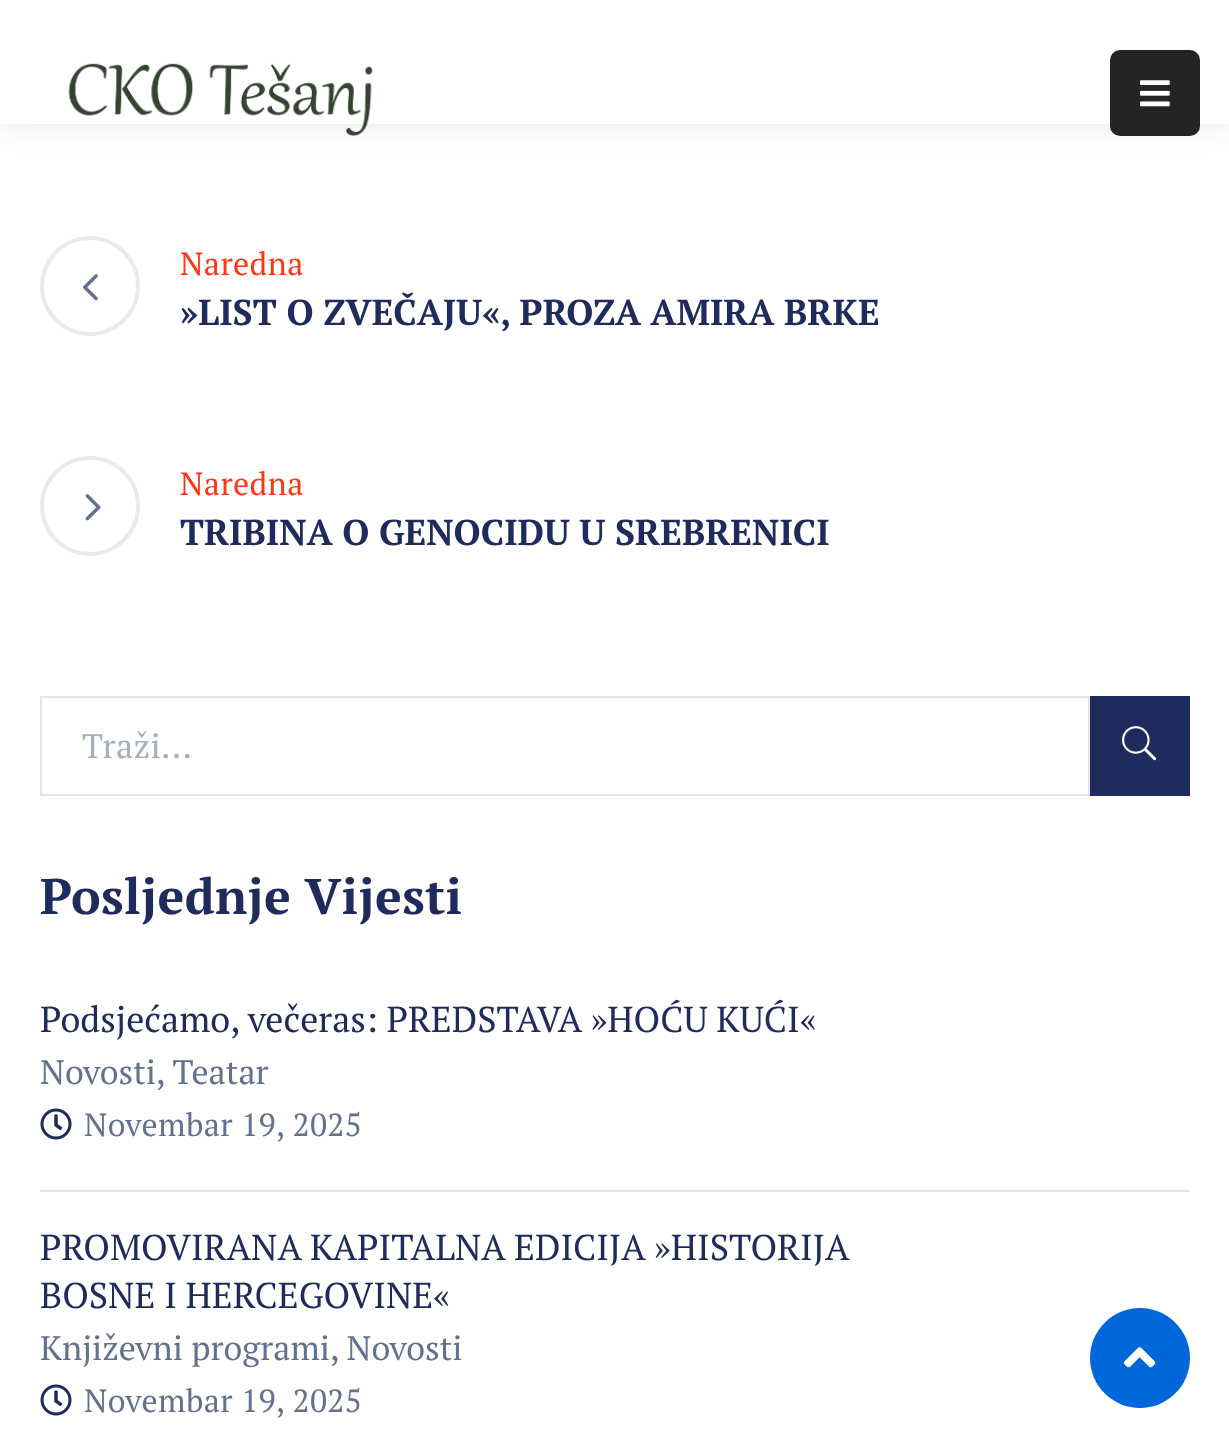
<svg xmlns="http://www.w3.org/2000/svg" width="1229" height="1447">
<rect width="100%" height="100%" fill="#fff"/>
<rect width="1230" height="124" fill="#0000001a" filter="blur(15px)"/>
<rect width="1229" height="124" fill="#fff"/>
<image x="68" y="63" width="305" height="73" href="media/1.png"/>
<rect x="1110" y="50" width="90" height="86" rx="10" fill="#242424"/>
<image x="1140" y="80" width="30" height="27" href="media/2.png"/>
<circle cx="90" cy="286" r="48" fill="none" stroke="#eaeaea" stroke-width="4"/>
<image x="83" y="274" width="15" height="27" href="media/3.png"/>
<text x="180" y="275" style="font-family:PT Serif;font-size:32px;letter-spacing:0.4px;fill:#ff3514">Naredna</text>
<text x="180" y="325" style="font-family:PT Serif;font-size:36px;font-weight:bold;fill:#202b5d">»LIST O ZVEČAJU«, PROZA AMIRA BRKE</text>
<circle cx="90" cy="506" r="48" fill="none" stroke="#eaeaea" stroke-width="4"/>
<image x="85" y="494" width="16" height="27" href="media/4.png"/>
<text x="180" y="495" style="font-family:PT Serif;font-size:32px;letter-spacing:0.4px;fill:#ff3514">Naredna</text>
<text x="180" y="545" style="font-family:PT Serif;font-size:36px;font-weight:bold;fill:#202b5d">TRIBINA O GENOCIDU U SREBRENICI</text>
<rect x="41" y="697" width="1048" height="98" fill="none" stroke="#e5e5e5" stroke-width="2"/>
<text x="82" y="758" style="font-family:PT Serif;font-size:34px;letter-spacing:0.4px;fill:#a6afbd">Traži...</text>
<rect x="1090" y="696" width="100" height="100" fill="#202b5d"/>
<image x="1122" y="726" width="35" height="35" href="media/5.png"/>
<text x="40" y="914" style="font-family:PT Serif;font-size:50px;font-weight:bold;letter-spacing:0.4px;fill:#202b5d">Posljednje Vijesti</text>
<rect x="40" y="1190" width="1150" height="2" fill="#e5e5e5"/>
<text x="40" y="1032" style="font-family:PT Serif;font-size:36px;fill:#202b5d">Podsjećamo, večeras: PREDSTAVA »HOĆU KUĆI«</text>
<text x="40" y="1084" style="font-family:PT Serif;font-size:34px;fill:#62718d">Novosti, Teatar</text>
<image x="40" y="1108" width="32" height="32" href="media/6.png"/>
<text x="84" y="1136" style="font-family:PT Serif;font-size:32px;letter-spacing:0.4px;fill:#62718d">Novembar 19, 2025</text>
<text x="40" y="1260" style="font-family:PT Serif;font-size:36px;fill:#202b5d">PROMOVIRANA KAPITALNA EDICIJA »HISTORIJA</text>
<text x="40" y="1308" style="font-family:PT Serif;font-size:36px;fill:#202b5d">BOSNE I HERCEGOVINE«</text>
<text x="40" y="1360" style="font-family:PT Serif;font-size:34px;fill:#62718d">Književni programi, Novosti</text>
<image x="40" y="1384" width="32" height="32" href="media/6.png"/>
<text x="84" y="1412" style="font-family:PT Serif;font-size:32px;letter-spacing:0.4px;fill:#62718d">Novembar 19, 2025</text>
<circle cx="1140" cy="1358" r="50" fill="#0067da"/>
<image x="1124" y="1347" width="32" height="21" href="media/7.png"/>
</svg>
